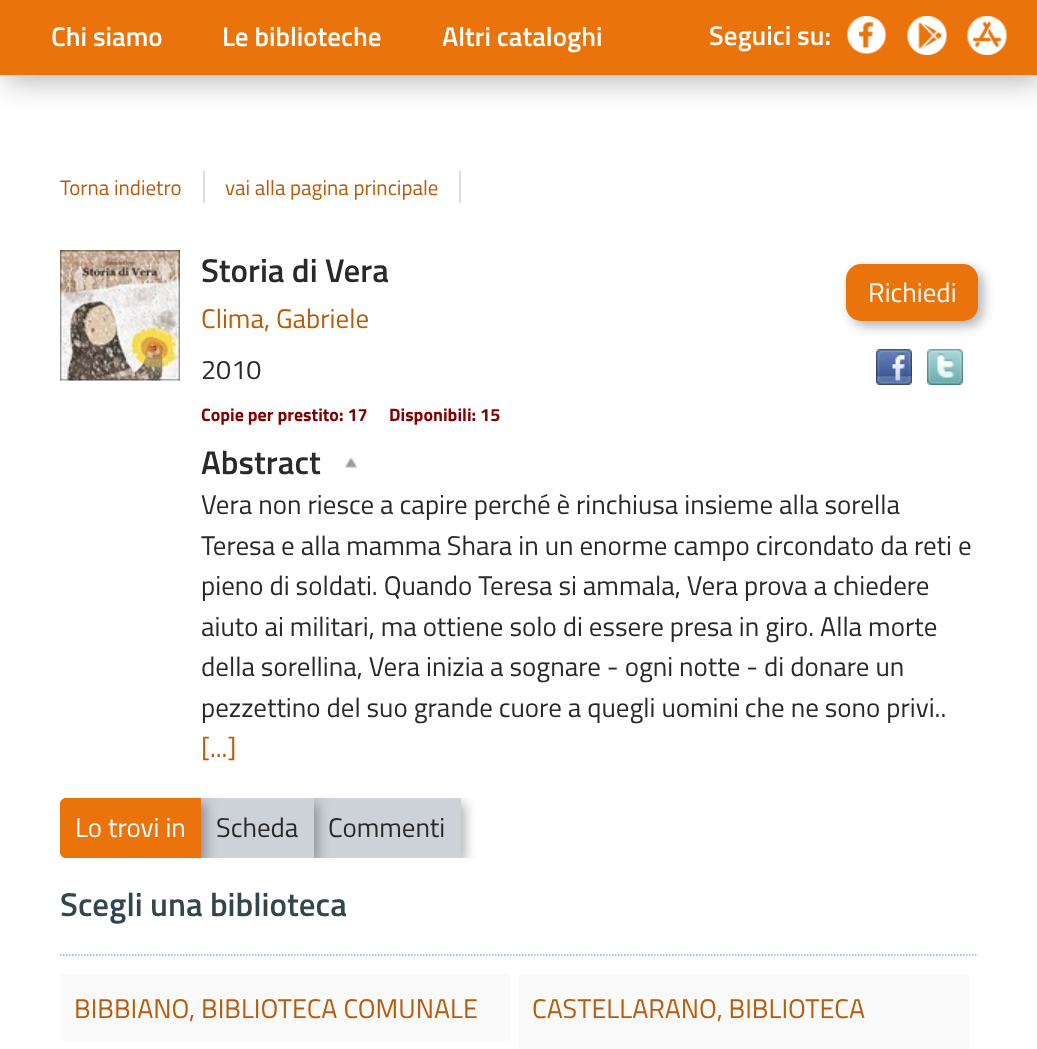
<svg xmlns="http://www.w3.org/2000/svg" width="1037" height="1049">
<defs>
<clipPath id="clip1"><rect x="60" y="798" width="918" height="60" rx="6"/></clipPath>
</defs>
<rect width="100%" height="100%" fill="#fff"/>
<rect x="5" y="2" width="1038" height="78" fill="#0000004d" filter="blur(15px)"/>
<rect width="1037" height="75" fill="#ea730b"/>
<text x="51" y="46" style="font-family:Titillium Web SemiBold;font-size:27px;font-weight:600;fill:#fff">Chi siamo</text>
<text x="222" y="46" style="font-family:Titillium Web SemiBold;font-size:27px;font-weight:600;fill:#fff">Le biblioteche</text>
<text x="442" y="46" style="font-family:Titillium Web SemiBold;font-size:27px;font-weight:600;fill:#fff">Altri cataloghi</text>
<text x="709" y="45" style="font-family:Titillium Web SemiBold;font-size:27px;font-weight:600;fill:#fff">Seguici su:</text>
<image x="847" y="16" width="40" height="38" href="media/1.png"/>
<image x="907" y="16" width="40" height="39" href="media/2.png"/>
<image x="967" y="16" width="40" height="39" href="media/3.png"/>
<text x="60" y="195" style="font-family:Titillium Web;font-size:21px;fill:#b95b09">Torna indietro</text>
<rect x="203" y="171" width="2" height="32" fill="#ddd"/>
<text x="225" y="195" style="font-family:Titillium Web;font-size:21px;fill:#b95b09">vai alla pagina principale</text>
<rect x="459" y="171" width="2" height="32" fill="#ddd"/>
<image x="60" y="250" width="120" height="131" href="media/4.png"/>
<text x="201" y="282" style="font-family:Titillium Web SemiBold;font-size:33px;font-weight:600;fill:#292929">Storia di Vera</text>
<rect x="851" y="269" width="132" height="57" rx="15" fill="#0000004d" filter="blur(6px)"/>
<rect x="846" y="264" width="132" height="57" rx="15" fill="#ea730b"/>
<text x="868" y="302" style="font-family:Titillium Web;font-size:27px;fill:#fff">Richiedi</text>
<image x="876" y="349" width="36" height="36" href="media/5.png"/>
<image x="927" y="349" width="36" height="36" href="media/6.png"/>
<text x="201" y="328" style="font-family:Titillium Web;font-size:27px;fill:#b95b09">Clima, Gabriele</text>
<text x="201" y="379" style="font-family:Titillium Web;font-size:27px;fill:#292929">2010</text>
<text x="201" y="421" style="font-family:Titillium Web;font-size:18px;font-weight:bold;fill:#800000">Copie per prestito: 17</text>
<text x="389" y="421" style="font-family:Titillium Web;font-size:18px;font-weight:bold;fill:#800000">Disponibili: 15</text>
<text x="201" y="474" style="font-family:Titillium Web SemiBold;font-size:33px;font-weight:600;fill:#292929">Abstract</text>
<image x="344" y="457" width="14" height="11" href="media/7.png"/>
<text x="201" y="514" style="font-family:Titillium Web;font-size:27px;fill:#292929">Vera non riesce a capire perché è rinchiusa insieme alla sorella</text>
<text x="201" y="555" style="font-family:Titillium Web;font-size:27px;fill:#292929">Teresa e alla mamma Shara in un enorme campo circondato da reti e</text>
<text x="201" y="595" style="font-family:Titillium Web;font-size:27px;fill:#292929">pieno di soldati. Quando Teresa si ammala, Vera prova a chiedere</text>
<text x="201" y="636" style="font-family:Titillium Web;font-size:27px;fill:#292929">aiuto ai militari, ma ottiene solo di essere presa in giro. Alla morte</text>
<text x="201" y="676" style="font-family:Titillium Web;font-size:27px;fill:#292929">della sorellina, Vera inizia a sognare - ogni notte - di donare un</text>
<text x="201" y="717" style="font-family:Titillium Web;font-size:27px;fill:#292929">pezzettino del suo grande cuore a quegli uomini che ne sono privi..</text>
<text x="201" y="757" style="font-family:Titillium Web;font-size:27px;fill:#b95b09">[...]</text>
<g clip-path="url(#clip1)">
<rect x="318" y="803" width="147" height="60" fill="#0000004d" filter="blur(6px)"/>
</g>
<rect x="314" y="798" width="147" height="60" fill="#cdd2d8"/>
<g clip-path="url(#clip1)">
<rect x="206" y="803" width="112" height="60" fill="#0000004d" filter="blur(6px)"/>
</g>
<rect x="201" y="798" width="113" height="60" fill="#cdd2d8"/>
<g clip-path="url(#clip1)">
<rect x="65" y="803" width="141" height="60" fill="#0000004d" filter="blur(6px)"/>
</g>
<path d="M66 798h135v60h-135c-3.5 0-6-2.5-6-6v-48c0-3.5 2.5-6 6-6z" fill="#ea730b"/>
<text x="75" y="837" style="font-family:Titillium Web;font-size:27px;fill:#fff">Lo trovi in</text>
<text x="216" y="837" style="font-family:Titillium Web;font-size:27px;fill:#292929">Scheda</text>
<text x="328" y="837" style="font-family:Titillium Web;font-size:27px;fill:#292929">Commenti</text>
<path d="M60 955h918" fill="none" stroke="#7cb1db" stroke-width="1.5" stroke-dasharray="1.5 1.5"/>
<text x="60" y="916" style="font-family:Titillium Web SemiBold;font-size:33px;font-weight:600;fill:#34464c">Scegli una biblioteca</text>
<rect x="60" y="974" width="450" height="67" fill="#fafafa"/>
<text x="74" y="1018" style="font-family:Titillium Web;font-size:27px;fill:#b95b09">BIBBIANO, BIBLIOTECA COMUNALE</text>
<rect x="519" y="974" width="450" height="75" fill="#fafafa"/>
<text x="532" y="1018" style="font-family:Titillium Web;font-size:27px;fill:#b95b09">CASTELLARANO, BIBLIOTECA</text>
</svg>
